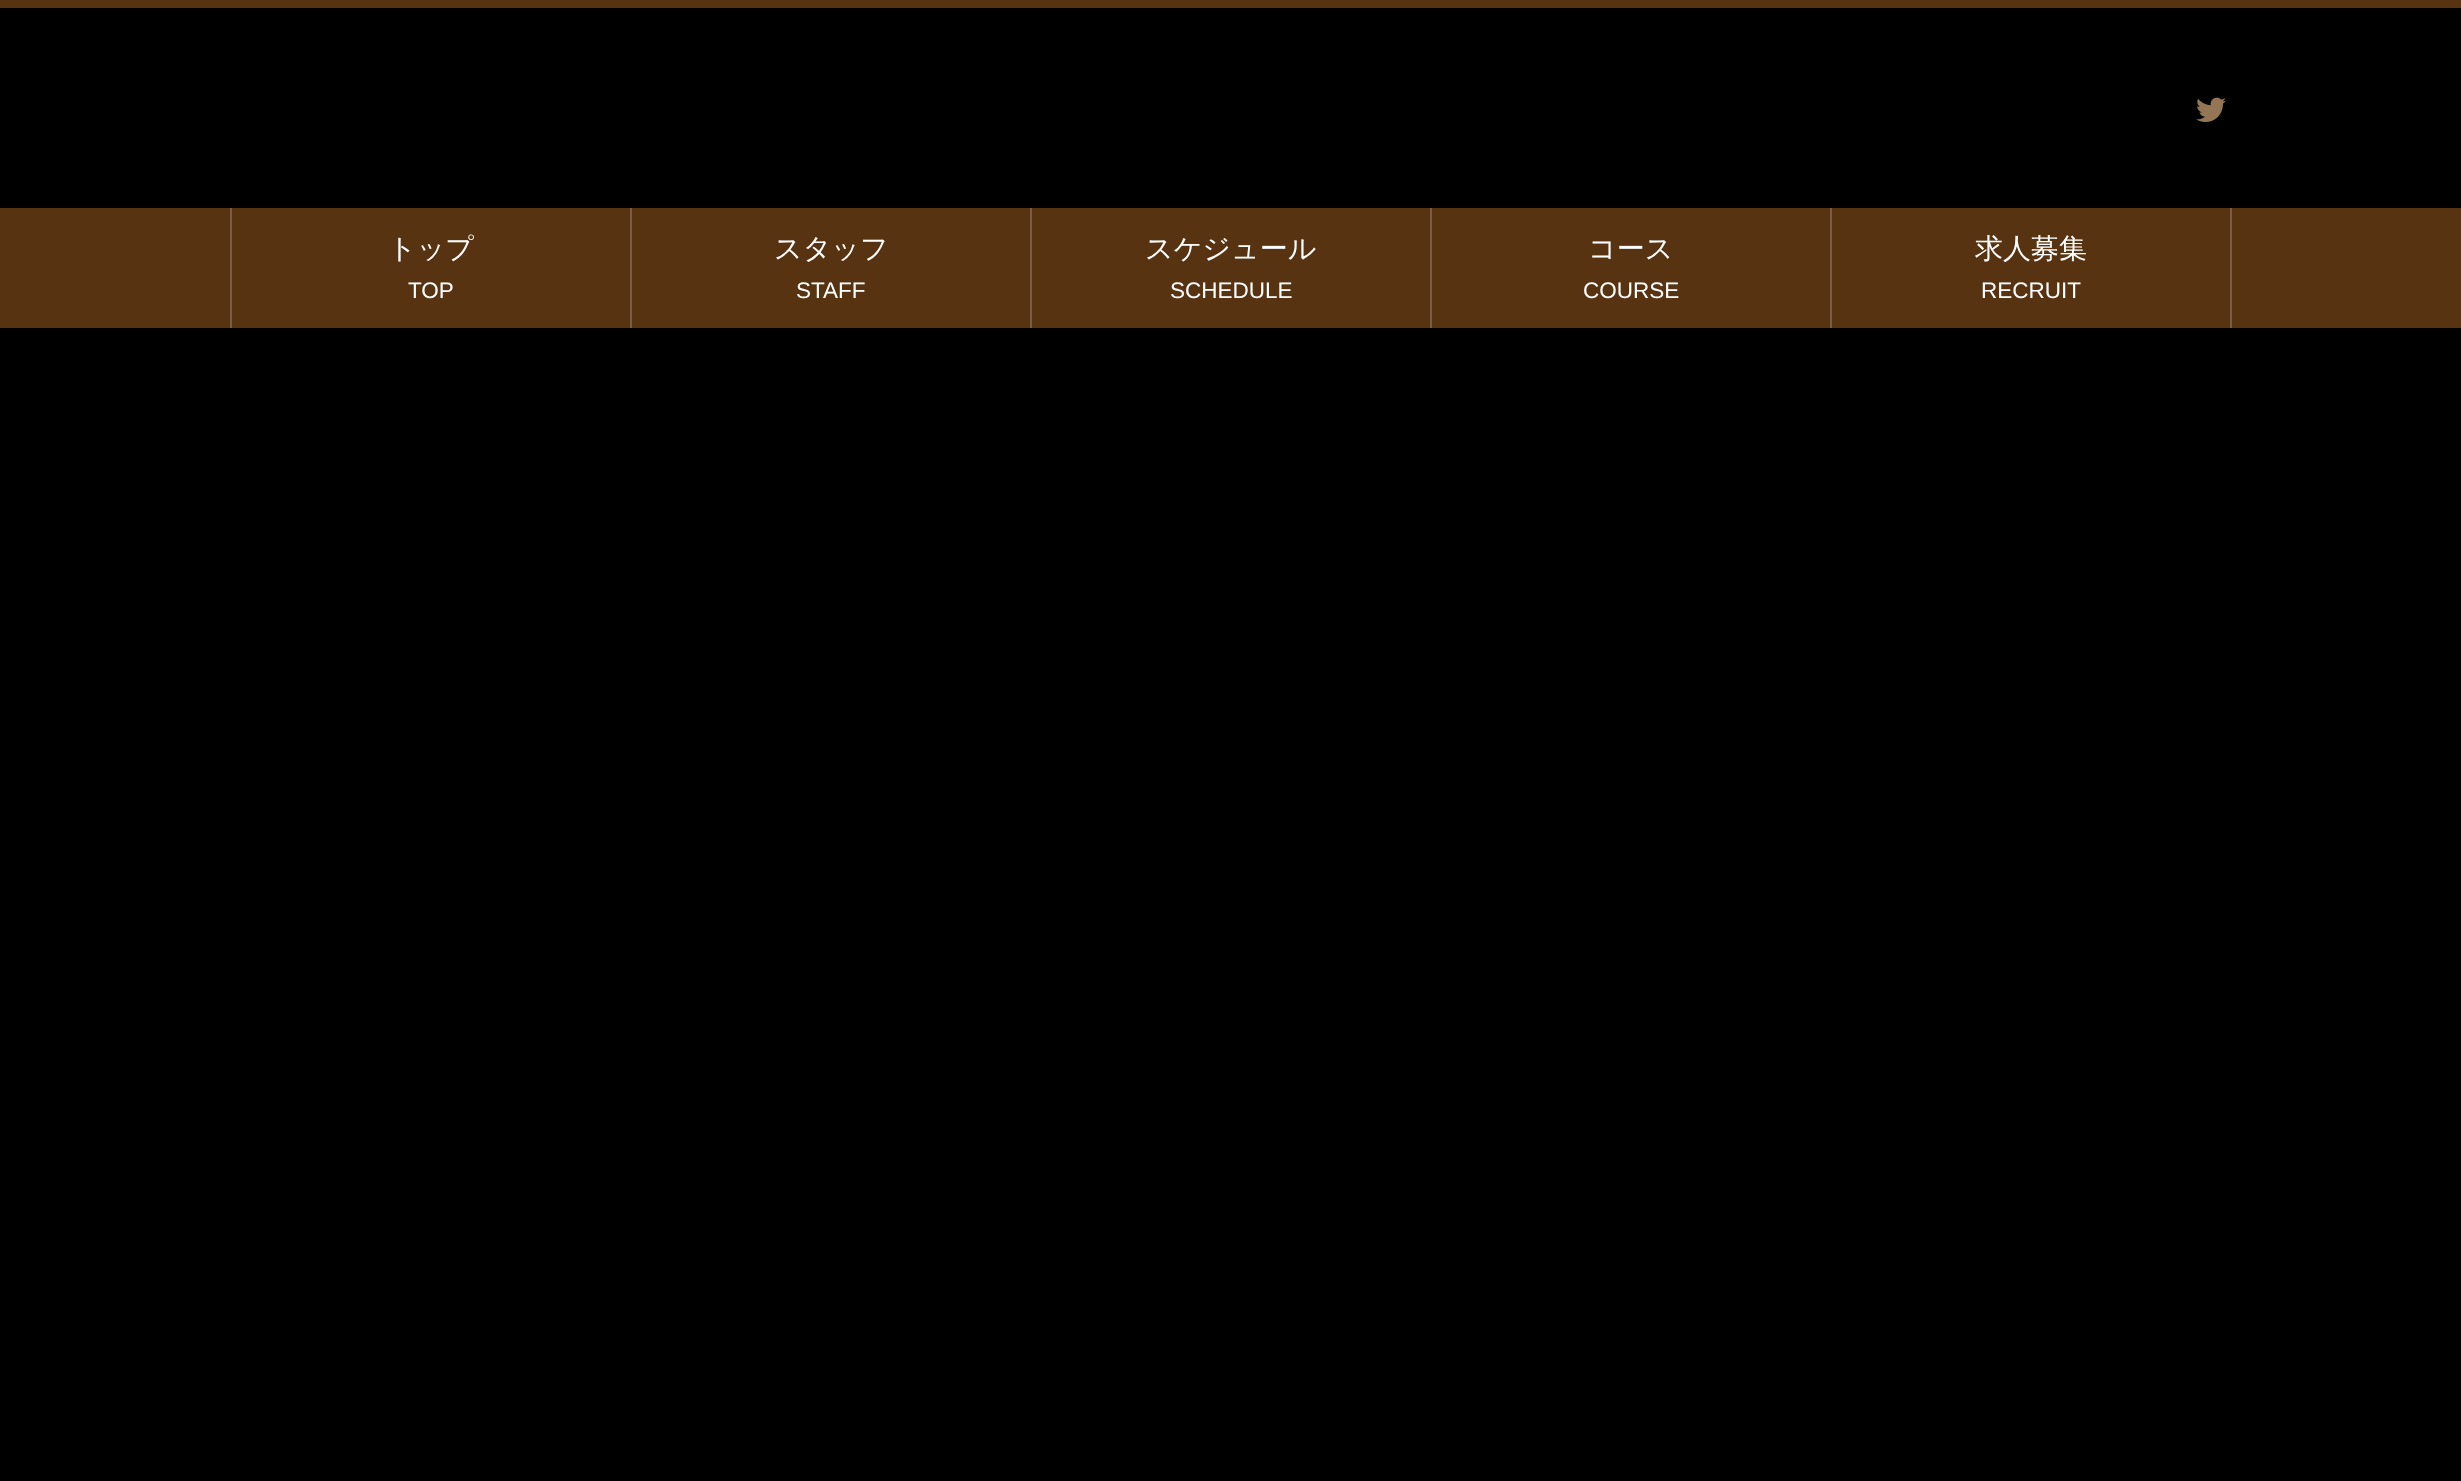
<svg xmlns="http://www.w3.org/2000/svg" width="2461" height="1481">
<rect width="100%" height="100%" fill="#000"/>
<rect width="2461" height="8" fill="#573312"/>
<image x="2196" y="97" width="30" height="25" href="media/1.png"/>
<rect y="208" width="2461" height="120" fill="#573312"/>
<rect x="230" y="208" width="2" height="120" fill="#795c41"/>
<rect x="630" y="208" width="2" height="120" fill="#795c41"/>
<text x="388" y="258" style="font-family:WenQuanYi Zen Hei;font-size:28px;font-weight:500;fill:#fff">トップ</text>
<text x="408" y="298" style="font-family:Liberation Sans;font-size:22.5px;fill:#fff">TOP</text>
<rect x="1030" y="208" width="2" height="120" fill="#795c41"/>
<text x="774" y="258" style="font-family:WenQuanYi Zen Hei;font-size:28px;font-weight:500;fill:#fff">スタッフ</text>
<text x="796" y="298" style="font-family:Liberation Sans;font-size:22.5px;fill:#fff">STAFF</text>
<rect x="1430" y="208" width="2" height="120" fill="#795c41"/>
<text x="1145" y="258" style="font-family:WenQuanYi Zen Hei;font-size:28px;font-weight:500;fill:#fff">スケジュール</text>
<text x="1170" y="298" style="font-family:Liberation Sans;font-size:22.5px;fill:#fff">SCHEDULE</text>
<rect x="1830" y="208" width="2" height="120" fill="#795c41"/>
<text x="1588" y="258" style="font-family:WenQuanYi Zen Hei;font-size:28px;font-weight:500;fill:#fff">コース</text>
<text x="1583" y="298" style="font-family:Liberation Sans;font-size:22.5px;fill:#fff">COURSE</text>
<rect x="2230" y="208" width="2" height="120" fill="#795c41"/>
<text x="1975" y="258" style="font-family:WenQuanYi Zen Hei;font-size:28px;font-weight:500;fill:#fff">求人募集</text>
<text x="1981" y="298" style="font-family:Liberation Sans;font-size:22.5px;fill:#fff">RECRUIT</text>
</svg>
